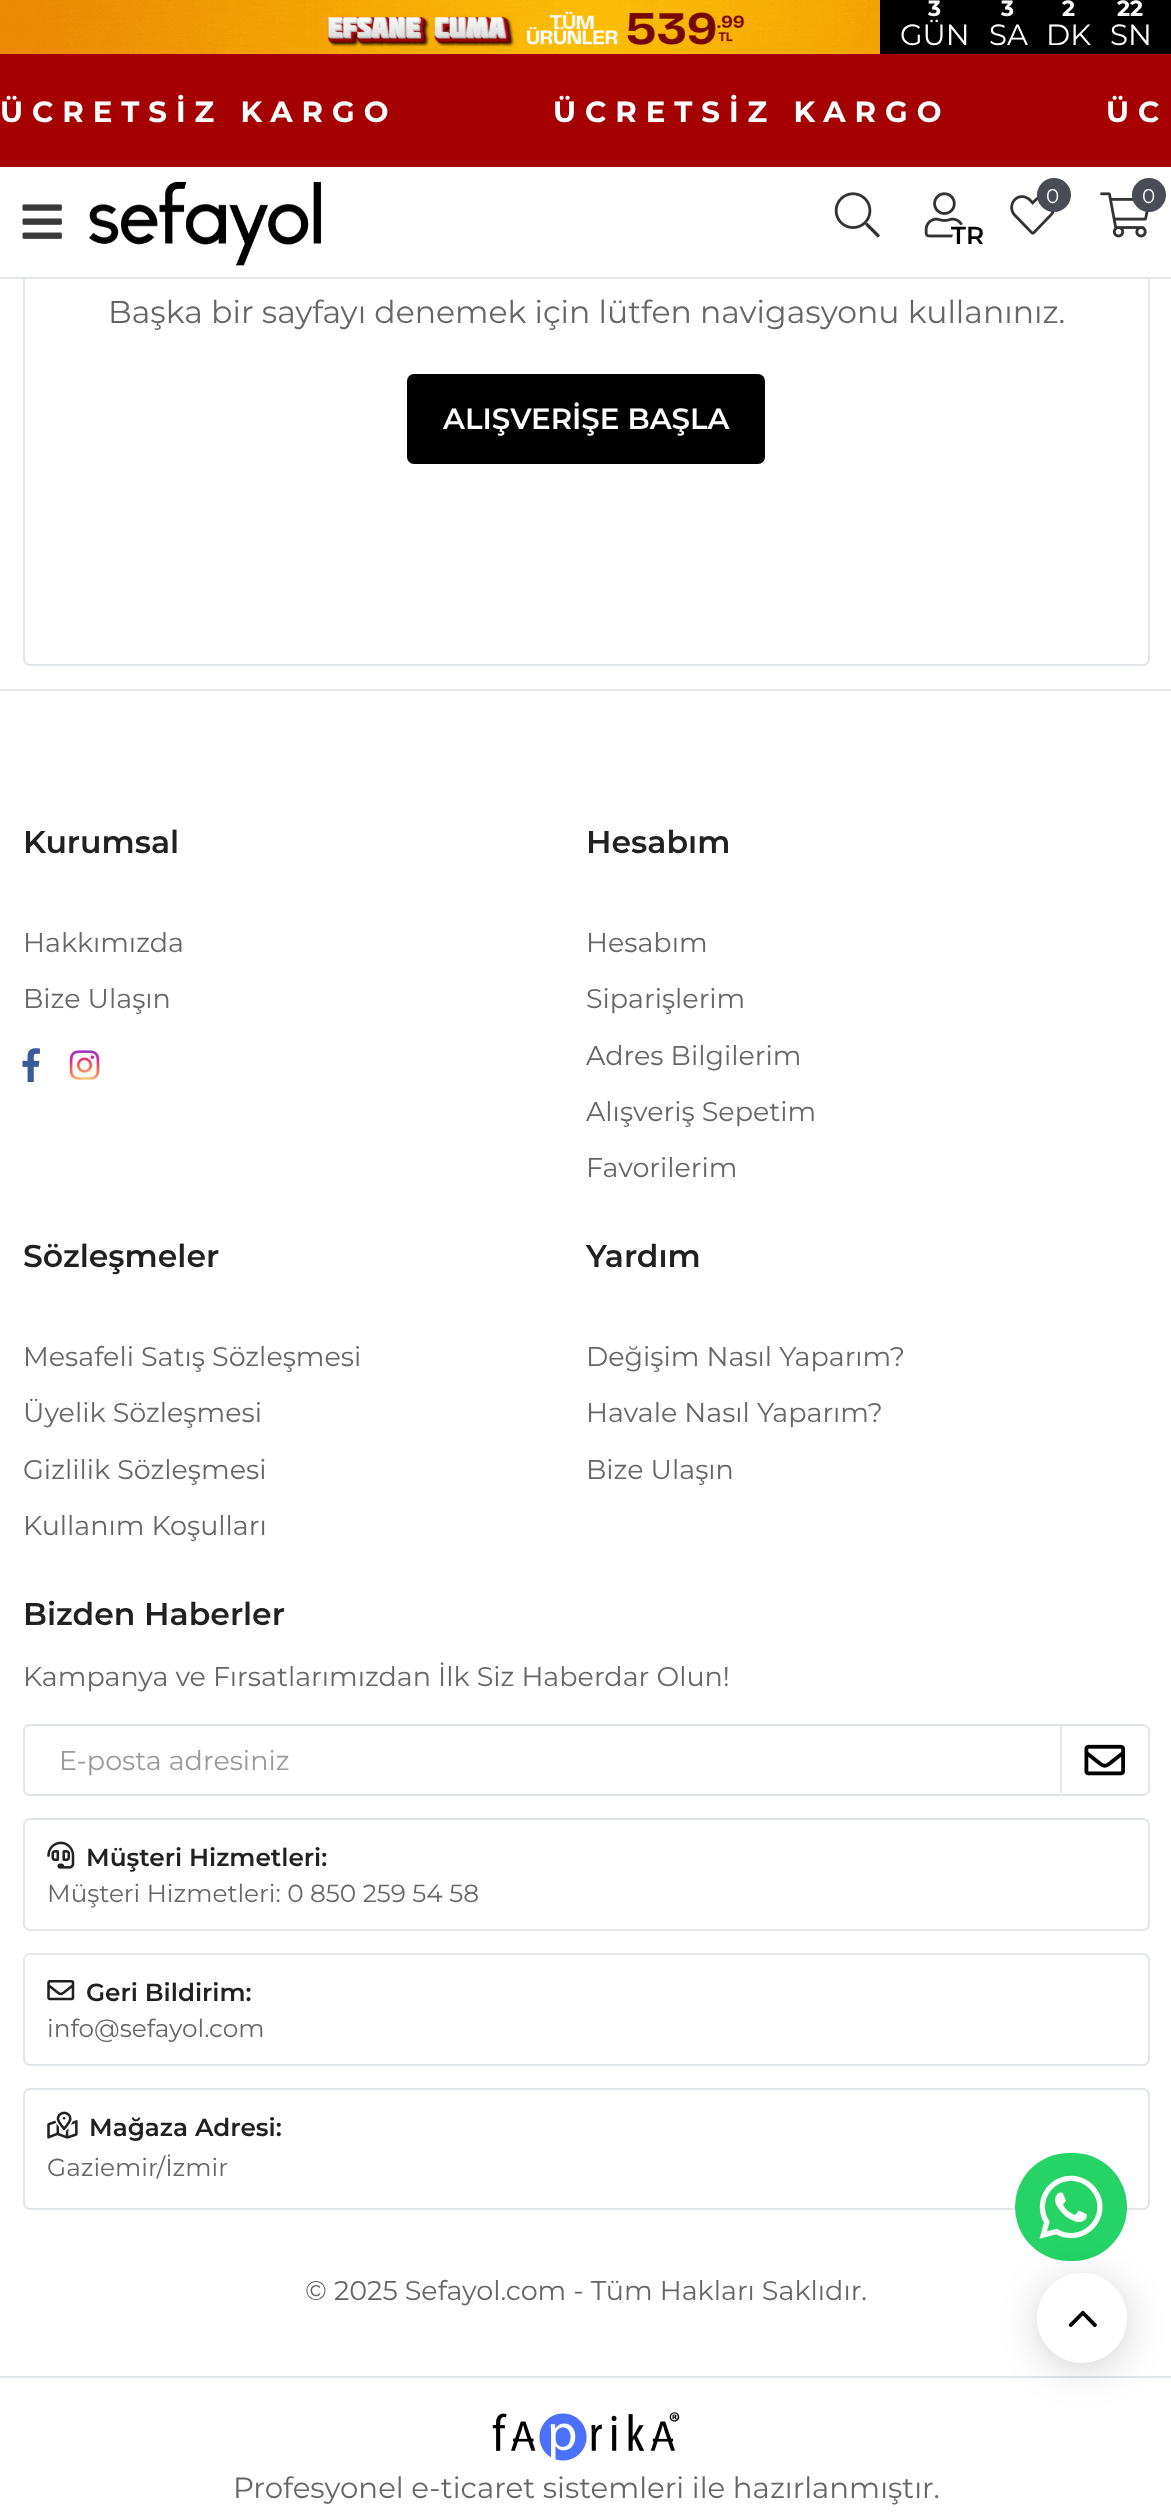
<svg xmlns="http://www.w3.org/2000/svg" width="1171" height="2519">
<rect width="100%" height="100%" fill="#fff"/>
<rect x="24" y="-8" width="1125" height="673" rx="6" fill="none" stroke="#e2e6eb" stroke-width="2"/>
<rect x="23" y="167" width="1127" height="110" fill="#fff"/>
<image x="0" y="0" width="880" height="54" href="media/1.png"/>
<rect x="880" width="291" height="54" fill="#000"/>
<text x="928" y="16" style="font-family:Montserrat;font-size:22px;font-weight:bold;fill:#fff">3</text>
<text x="900" y="45" style="font-family:Montserrat;font-size:29.25px;fill:#fff">GÜN</text>
<text x="1001" y="16" style="font-family:Montserrat;font-size:22px;font-weight:bold;fill:#fff">3</text>
<text x="989" y="45" style="font-family:Montserrat;font-size:29.25px;fill:#fff">SA</text>
<text x="1062" y="16" style="font-family:Montserrat;font-size:22px;font-weight:bold;fill:#fff">2</text>
<text x="1046" y="45" style="font-family:Montserrat;font-size:29.25px;fill:#fff">DK</text>
<text x="1117" y="16" style="font-family:Montserrat;font-size:22px;font-weight:bold;fill:#fff">22</text>
<text x="1110" y="45" style="font-family:Montserrat;font-size:29.25px;fill:#fff">SN</text>
<rect y="54" width="1171" height="113" fill="#a50102"/>
<text x="0" y="122" style="font-family:Montserrat;font-size:29.25px;font-weight:bold;letter-spacing:9px;fill:#fff">ÜCRETSİZ KARGO</text>
<text x="553" y="122" style="font-family:Montserrat;font-size:29.25px;font-weight:bold;letter-spacing:9px;fill:#fff">ÜCRETSİZ KARGO</text>
<text x="1106" y="122" style="font-family:Montserrat;font-size:29.25px;font-weight:bold;letter-spacing:9px;fill:#fff">ÜC</text>
<rect y="277" width="1171" height="2" fill="#e2e6eb"/>
<image x="22" y="204" width="40" height="35" href="media/2.png"/>
<image x="89" y="181" width="232" height="85" href="media/3.png"/>
<image x="834" y="192" width="46" height="46" href="media/4.png"/>
<image x="924" y="192" width="40" height="46" href="media/5.png"/>
<circle cx="969" cy="240" r="17" fill="#fff"/>
<text x="951" y="244" style="font-family:Montserrat;font-size:24.75px;font-weight:600;fill:#000">TR</text>
<image x="1010" y="195" width="45" height="40" href="media/6.png"/>
<circle cx="1054" cy="195" r="17" fill="#494c55"/>
<text x="1046" y="203" style="font-family:Montserrat;font-size:20px;fill:#fff">0</text>
<image x="1100" y="192" width="49" height="46" href="media/7.png"/>
<circle cx="1149" cy="195" r="17" fill="#494c55"/>
<text x="1142" y="203" style="font-family:Montserrat;font-size:20px;fill:#fff">0</text>
<text x="108" y="323" style="font-family:Montserrat;font-size:31.5px;fill:#666">Başka bir sayfayı denemek için lütfen navigasyonu kullanınız.</text>
<rect x="408" y="375" width="356" height="88" rx="6" fill="#000" stroke="#000" stroke-width="2"/>
<text x="443" y="429" style="font-family:Montserrat;font-size:29.25px;font-weight:600;fill:#fff">ALIŞVERİŞE BAŞLA</text>
<rect y="689" width="1171" height="2" fill="#e2e6eb"/>
<text x="23" y="853" style="font-family:Montserrat;font-size:31.5px;font-weight:600;fill:#212121">Kurumsal</text>
<text x="23" y="952" style="font-family:Montserrat;font-size:27px;fill:#666">Hakkımızda</text>
<text x="23" y="1008" style="font-family:Montserrat;font-size:27px;fill:#666">Bize Ulaşın</text>
<image x="22" y="1048" width="18" height="34" href="media/8.png"/>
<image x="69" y="1050" width="31" height="30" href="media/9.png"/>
<text x="586" y="853" style="font-family:Montserrat;font-size:31.5px;font-weight:600;fill:#212121">Hesabım</text>
<text x="586" y="952" style="font-family:Montserrat;font-size:27px;fill:#666">Hesabım</text>
<text x="586" y="1008" style="font-family:Montserrat;font-size:27px;fill:#666">Siparişlerim</text>
<text x="586" y="1065" style="font-family:Montserrat;font-size:27px;fill:#666">Adres Bilgilerim</text>
<text x="586" y="1121" style="font-family:Montserrat;font-size:27px;fill:#666">Alışveriş Sepetim</text>
<text x="586" y="1177" style="font-family:Montserrat;font-size:27px;fill:#666">Favorilerim</text>
<text x="23" y="1267" style="font-family:Montserrat;font-size:31.5px;font-weight:600;fill:#212121">Sözleşmeler</text>
<text x="23" y="1366" style="font-family:Montserrat;font-size:27px;fill:#666">Mesafeli Satış Sözleşmesi</text>
<text x="23" y="1422" style="font-family:Montserrat;font-size:27px;fill:#666">Üyelik Sözleşmesi</text>
<text x="23" y="1479" style="font-family:Montserrat;font-size:27px;fill:#666">Gizlilik Sözleşmesi</text>
<text x="23" y="1535" style="font-family:Montserrat;font-size:27px;fill:#666">Kullanım Koşulları</text>
<text x="586" y="1267" style="font-family:Montserrat;font-size:31.5px;font-weight:600;fill:#212121">Yardım</text>
<text x="586" y="1366" style="font-family:Montserrat;font-size:27px;fill:#666">Değişim Nasıl Yaparım?</text>
<text x="586" y="1422" style="font-family:Montserrat;font-size:27px;fill:#666">Havale Nasıl Yaparım?</text>
<text x="586" y="1479" style="font-family:Montserrat;font-size:27px;fill:#666">Bize Ulaşın</text>
<text x="23" y="1625" style="font-family:Montserrat;font-size:31.5px;font-weight:600;fill:#212121">Bizden Haberler</text>
<text x="23" y="1686" style="font-family:Montserrat;font-size:27px;fill:#666">Kampanya ve Fırsatlarımızdan İlk Siz Haberdar Olun!</text>
<rect x="24" y="1725" width="1125" height="70" rx="6" fill="none" stroke="#e2e6eb" stroke-width="2"/>
<text x="59" y="1770" style="font-family:Montserrat;font-size:27px;fill:#9a9a9a">E-posta adresiniz</text>
<rect x="1060" y="1726" width="2" height="67" fill="#e2e6eb"/>
<image x="1084" y="1744" width="41" height="32" href="media/10.png"/>
<rect x="24" y="1819" width="1125" height="111" rx="6" fill="none" stroke="#e2e6eb" stroke-width="2"/>
<image x="47" y="1841" width="28" height="28" href="media/11.png"/>
<text x="86" y="1866" style="font-family:Montserrat;font-size:24.75px;font-weight:600;fill:#212121">Müşteri Hizmetleri:</text>
<text x="47" y="1902" style="font-family:Montserrat;font-size:24.75px;fill:#666">Müşteri Hizmetleri: 0 850 259 54 58</text>
<rect x="24" y="1954" width="1125" height="111" rx="6" fill="none" stroke="#e2e6eb" stroke-width="2"/>
<image x="47" y="1980" width="28" height="21" href="media/12.png"/>
<text x="86" y="2001" style="font-family:Montserrat;font-size:24.75px;font-weight:600;fill:#212121">Geri Bildirim:</text>
<text x="47" y="2037" style="font-family:Montserrat;font-size:24.75px;fill:#666">info@sefayol.com</text>
<rect x="24" y="2089" width="1125" height="120" rx="6" fill="none" stroke="#e2e6eb" stroke-width="2"/>
<image x="47" y="2111" width="31" height="28" href="media/13.png"/>
<text x="89" y="2136" style="font-family:Montserrat;font-size:24.75px;font-weight:600;fill:#212121">Mağaza Adresi:</text>
<text x="47" y="2176" style="font-family:Montserrat;font-size:24.75px;fill:#666">Gaziemir/İzmir</text>
<text x="305" y="2300" style="font-family:Montserrat;font-size:27px;fill:#666">© 2025 Sefayol.com - Tüm Hakları Saklıdır.</text>
<rect x="1015" y="2153" width="112" height="108" rx="54" fill="#25d366"/>
<image x="1039" y="2175" width="64" height="64" href="media/15.png"/>
<rect y="2376" width="1171" height="2" fill="#e2e6eb"/>
<rect x="1044" y="2286" width="77" height="77" rx="38.5" fill="#00000040" filter="blur(22.5px)"/>
<circle cx="1082" cy="2318" r="45" fill="#fff"/>
<image x="1068" y="2310" width="29" height="18" href="media/14.png"/>
<image x="492" y="2412" width="188" height="49" href="media/16.png"/>
<text x="233" y="2498" style="font-family:Montserrat;font-size:29.25px;fill:#666">Profesyonel e-ticaret sistemleri ile hazırlanmıştır.</text>
</svg>
